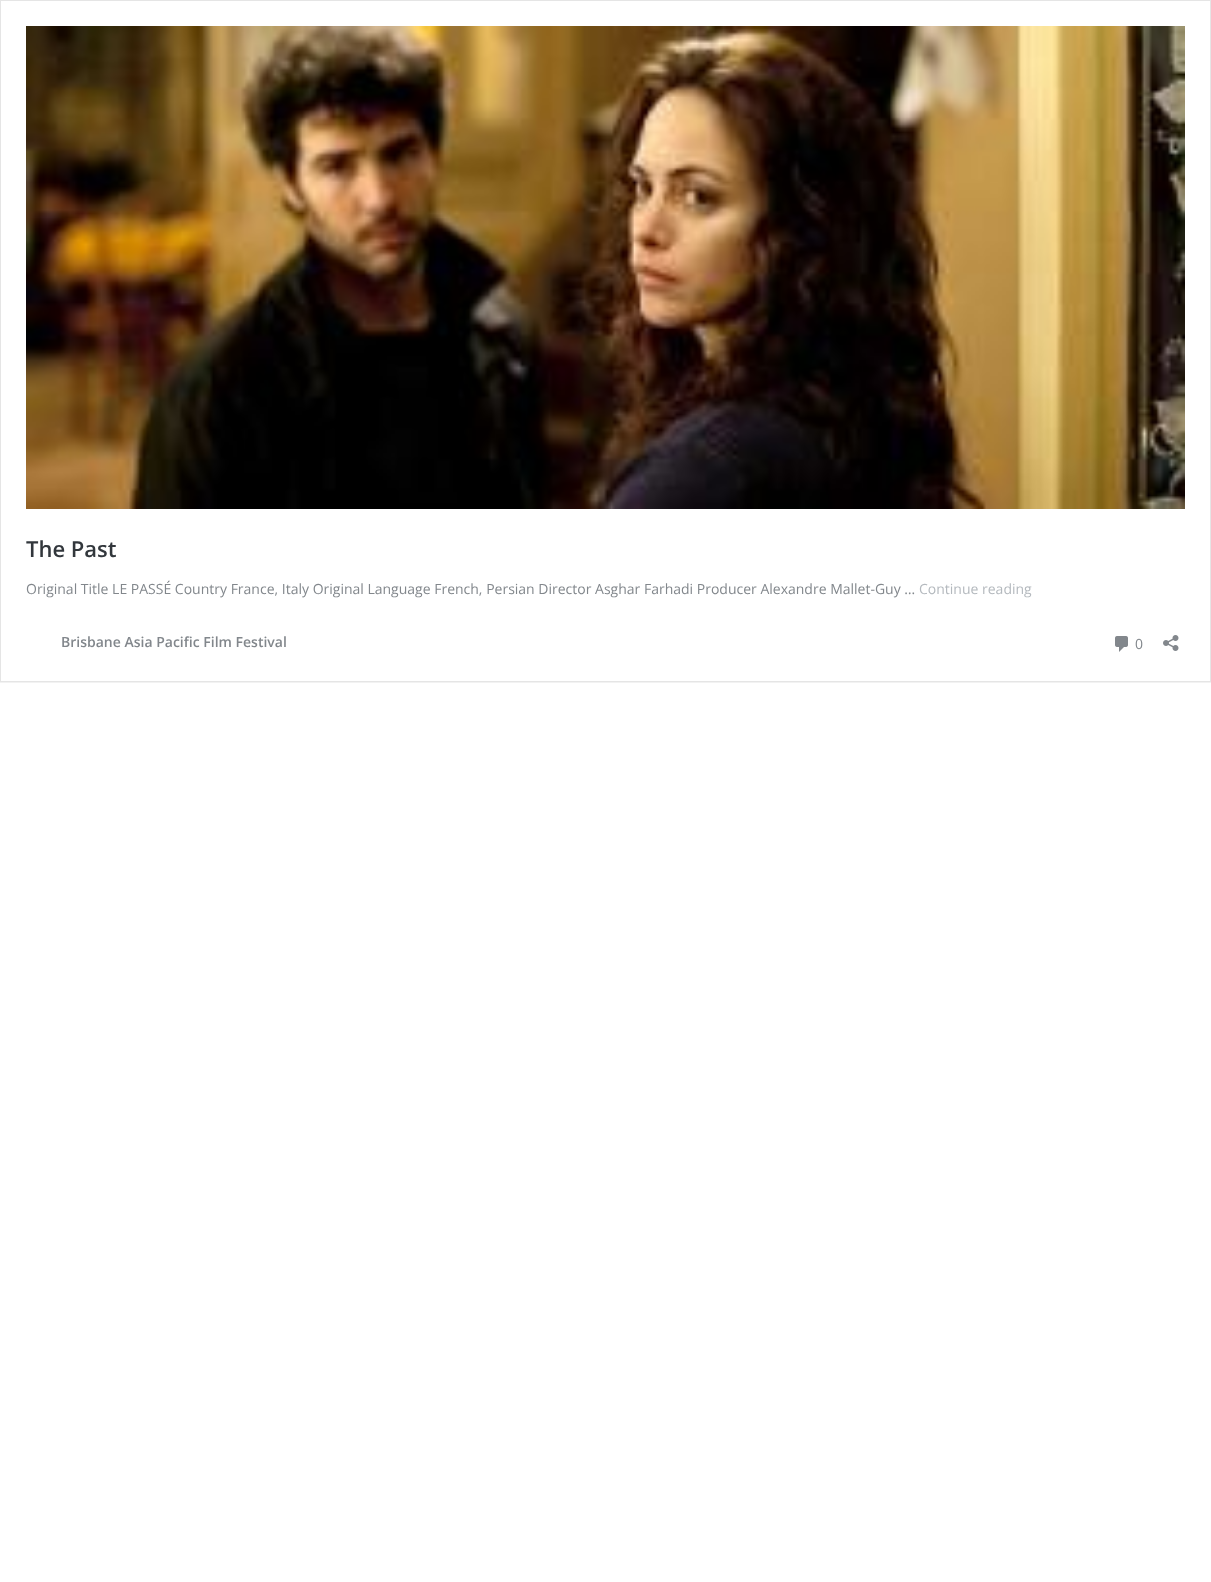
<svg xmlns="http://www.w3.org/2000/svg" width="1211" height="1582">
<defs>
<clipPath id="clip1"><rect x="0" y="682" width="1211" height="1"/></clipPath>
</defs>
<rect width="100%" height="100%" fill="#fff"/>
<g clip-path="url(#clip1)">
<rect y="1" width="1211" height="682" fill="#0000000d" filter="blur(0.5px)"/>
</g>
<rect x="0.5" y="0.5" width="1210" height="681" fill="none" stroke="#e5e5e5"/>
<image x="26" y="26" width="1159" height="483" href="media/1.png"/>
<text x="26" y="557" style="font-family:Open Sans;font-size:22px;font-weight:600;fill:#32373c">The Past</text>
<text x="26" y="594" style="font-family:Open Sans;font-size:14px;fill:#82878c">Original Title LE PASSÉ Country France, Italy Original Language French, Persian Director Asghar Farhadi Producer Alexandre Mallet-Guy …</text>
<text x="919" y="594" style="font-family:Open Sans;font-size:14px;fill:#b4b9be">Continue reading</text>
<text x="61" y="647" style="font-family:Open Sans;font-size:14px;font-weight:600;fill:#82878c">Brisbane Asia Pacific Film Festival</text>
<image x="1115" y="636" width="13" height="16" href="media/2.png"/>
<text x="1135" y="649" style="font-family:Open Sans;font-size:14px;fill:#82878c">0</text>
<image x="1163" y="635" width="16" height="16" href="media/3.png"/>
</svg>
